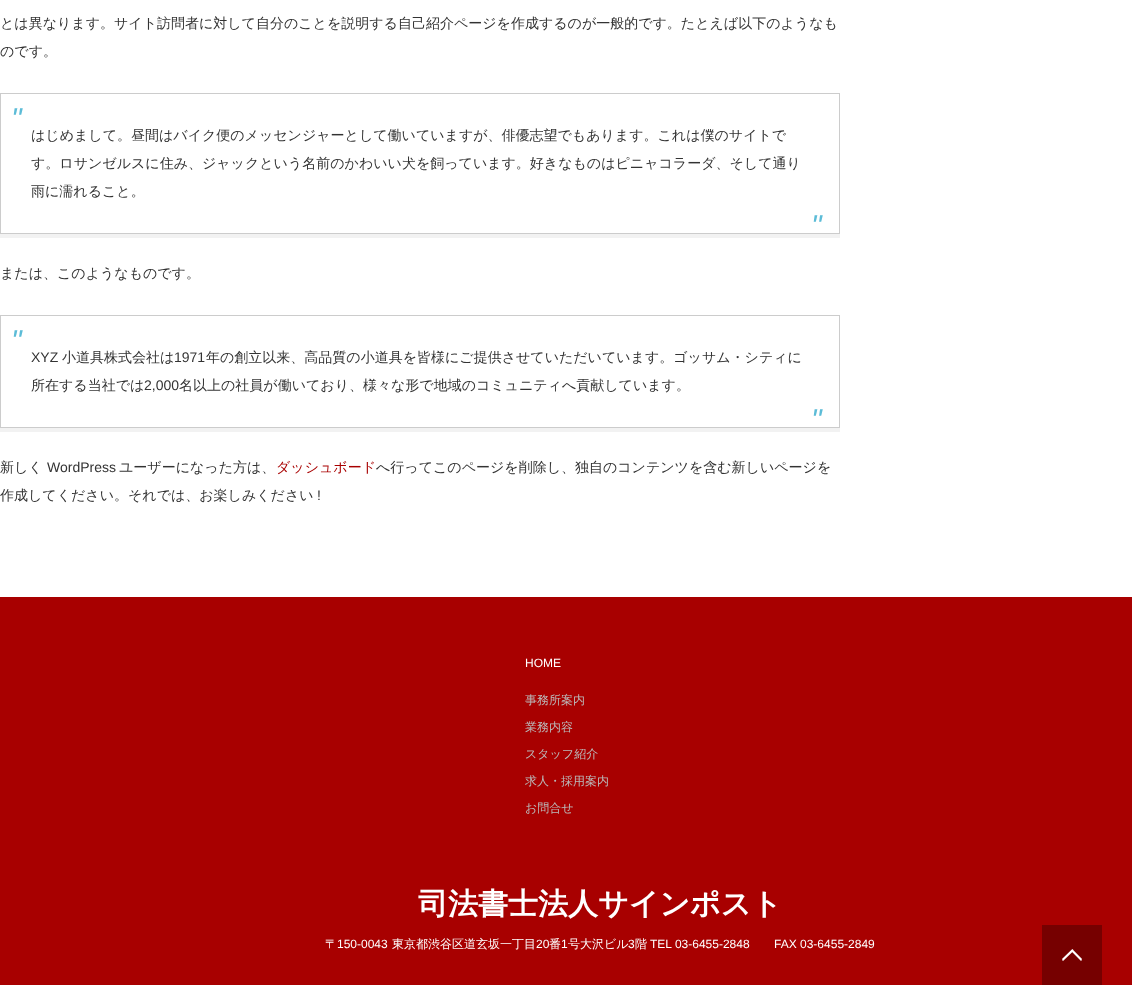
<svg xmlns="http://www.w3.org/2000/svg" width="1132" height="985">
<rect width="100%" height="100%" fill="#fff"/>
<text x="0" y="28" style="font-family:WenQuanYi Zen Hei;font-size:14px;font-weight:500;fill:#333">とは異なります。サイト訪問者に対して自分のことを説明する自己紹介ページを作成するのが一般的です。たとえば以下のようなも</text>
<text x="0" y="56" style="font-family:WenQuanYi Zen Hei;font-size:14px;font-weight:500;fill:#333">のです。</text>
<rect y="234" width="840" height="4" fill="#f2f2f2"/>
<rect x="0.5" y="93.5" width="839" height="140" fill="none" stroke="#ccc"/>
<text x="11" y="129" style="font-family:Liberation Sans;font-size:30px;font-style:italic;fill:#5cbcd7">"</text>
<text x="31" y="140" style="font-family:WenQuanYi Zen Hei;font-size:14px;font-weight:500;fill:#333">はじめまして。昼間はバイク便のメッセンジャーとして働いていますが、俳優志望でもあります。これは僕のサイトで</text>
<text x="31" y="168" style="font-family:WenQuanYi Zen Hei;font-size:14px;font-weight:500;fill:#333">す。ロサンゼルスに住み、ジャックという名前のかわいい犬を飼っています。好きなものはピニャコラーダ、そして通り</text>
<text x="31" y="196" style="font-family:WenQuanYi Zen Hei;font-size:14px;font-weight:500;fill:#333">雨に濡れること。</text>
<text x="811" y="236" style="font-family:Liberation Sans;font-size:30px;font-style:italic;fill:#5cbcd7">"</text>
<text x="0" y="278" style="font-family:WenQuanYi Zen Hei;font-size:14px;font-weight:500;fill:#333">または、このようなものです。</text>
<rect y="428" width="840" height="4" fill="#f2f2f2"/>
<rect x="0.5" y="315.5" width="839" height="112" fill="none" stroke="#ccc"/>
<text x="11" y="351" style="font-family:Liberation Sans;font-size:30px;font-style:italic;fill:#5cbcd7">"</text>
<text x="31" y="362" style="font-family:Liberation Sans;font-size:14px;fill:#333">XYZ</text>
<text x="62" y="362" style="font-family:WenQuanYi Zen Hei;font-size:14px;font-weight:500;fill:#333">小道具株式会社は</text>
<text x="174" y="362" style="font-family:Liberation Sans;font-size:14px;fill:#333">1971</text>
<text x="206" y="362" style="font-family:WenQuanYi Zen Hei;font-size:14px;font-weight:500;fill:#333">年の創立以来、高品質の小道具を皆様にご提供させていただいています。ゴッサム・シティに</text>
<text x="31" y="390" style="font-family:WenQuanYi Zen Hei;font-size:14px;font-weight:500;fill:#333">所在する当社では</text>
<text x="144" y="390" style="font-family:Liberation Sans;font-size:14px;fill:#333">2,000</text>
<text x="179" y="390" style="font-family:WenQuanYi Zen Hei;font-size:14px;font-weight:500;fill:#333">名以上の社員が働いており、様々な形で地域のコミュニティへ貢献しています。</text>
<text x="811" y="430" style="font-family:Liberation Sans;font-size:30px;font-style:italic;fill:#5cbcd7">"</text>
<text x="0" y="472" style="font-family:WenQuanYi Zen Hei;font-size:14px;font-weight:500;fill:#333">新しく</text>
<text x="47" y="472" style="font-family:Liberation Sans;font-size:14px;fill:#333">WordPress</text>
<text x="119" y="472" style="font-family:WenQuanYi Zen Hei;font-size:14px;font-weight:500;fill:#333">ユーザーになった方は、</text>
<text x="276" y="472" style="font-family:WenQuanYi Zen Hei;font-size:14px;font-weight:500;fill:#a80000">ダッシュボード</text>
<text x="376" y="472" style="font-family:WenQuanYi Zen Hei;font-size:14px;font-weight:500;fill:#333">へ行ってこのページを削除し、独自のコンテンツを含む新しいページを</text>
<text x="0" y="500" style="font-family:WenQuanYi Zen Hei;font-size:14px;font-weight:500;fill:#333">作成してください。それでは、お楽しみください</text>
<text x="317" y="500" style="font-family:Liberation Sans;font-size:14px;fill:#333">!</text>
<rect y="597" width="1132" height="388" fill="#a80000"/>
<text x="525" y="667" style="font-family:Liberation Sans;font-size:12px;fill:#fff">HOME</text>
<text x="525" y="704" style="font-family:WenQuanYi Zen Hei;font-size:12px;font-weight:500;fill:#bbb">事務所案内</text>
<text x="525" y="731" style="font-family:WenQuanYi Zen Hei;font-size:12px;font-weight:500;fill:#bbb">業務内容</text>
<text x="525" y="758" style="font-family:WenQuanYi Zen Hei;font-size:12px;font-weight:500;fill:#bbb">スタッフ紹介</text>
<text x="525" y="785" style="font-family:WenQuanYi Zen Hei;font-size:12px;font-weight:500;fill:#bbb">求人・採用案内</text>
<text x="525" y="812" style="font-family:WenQuanYi Zen Hei;font-size:12px;font-weight:500;fill:#bbb">お問合せ</text>
<text x="418" y="914" style="font-family:WenQuanYi Zen Hei;font-size:30px;font-weight:bold;fill:#fff">司法書士法人サインポスト</text>
<text x="325" y="948" style="font-family:WenQuanYi Zen Hei;font-size:12px;font-weight:500;fill:#fff">〒</text>
<text x="337" y="948" style="font-family:Liberation Sans;font-size:12px;fill:#fff">150-0043</text>
<text x="392" y="948" style="font-family:WenQuanYi Zen Hei;font-size:12px;font-weight:500;fill:#fff">東京都渋谷区道玄坂一丁目</text>
<text x="536" y="948" style="font-family:Liberation Sans;font-size:12px;fill:#fff">20</text>
<text x="549" y="948" style="font-family:WenQuanYi Zen Hei;font-size:12px;font-weight:500;fill:#fff">番</text>
<text x="561" y="948" style="font-family:Liberation Sans;font-size:12px;fill:#fff">1</text>
<text x="568" y="948" style="font-family:WenQuanYi Zen Hei;font-size:12px;font-weight:500;fill:#fff">号大沢ビル</text>
<text x="628" y="948" style="font-family:Liberation Sans;font-size:12px;fill:#fff">3</text>
<text x="635" y="948" style="font-family:WenQuanYi Zen Hei;font-size:12px;font-weight:500;fill:#fff">階</text>
<text x="650" y="948" style="font-family:Liberation Sans;font-size:12px;fill:#fff">TEL 03-6455-2848</text>
<text x="774" y="948" style="font-family:Liberation Sans;font-size:12px;fill:#fff">FAX 03-6455-2849</text>
<rect x="1042" y="925" width="60" height="60" fill="#760000"/>
<image x="1062" y="949" width="20" height="12" href="media/1.png"/>
</svg>
